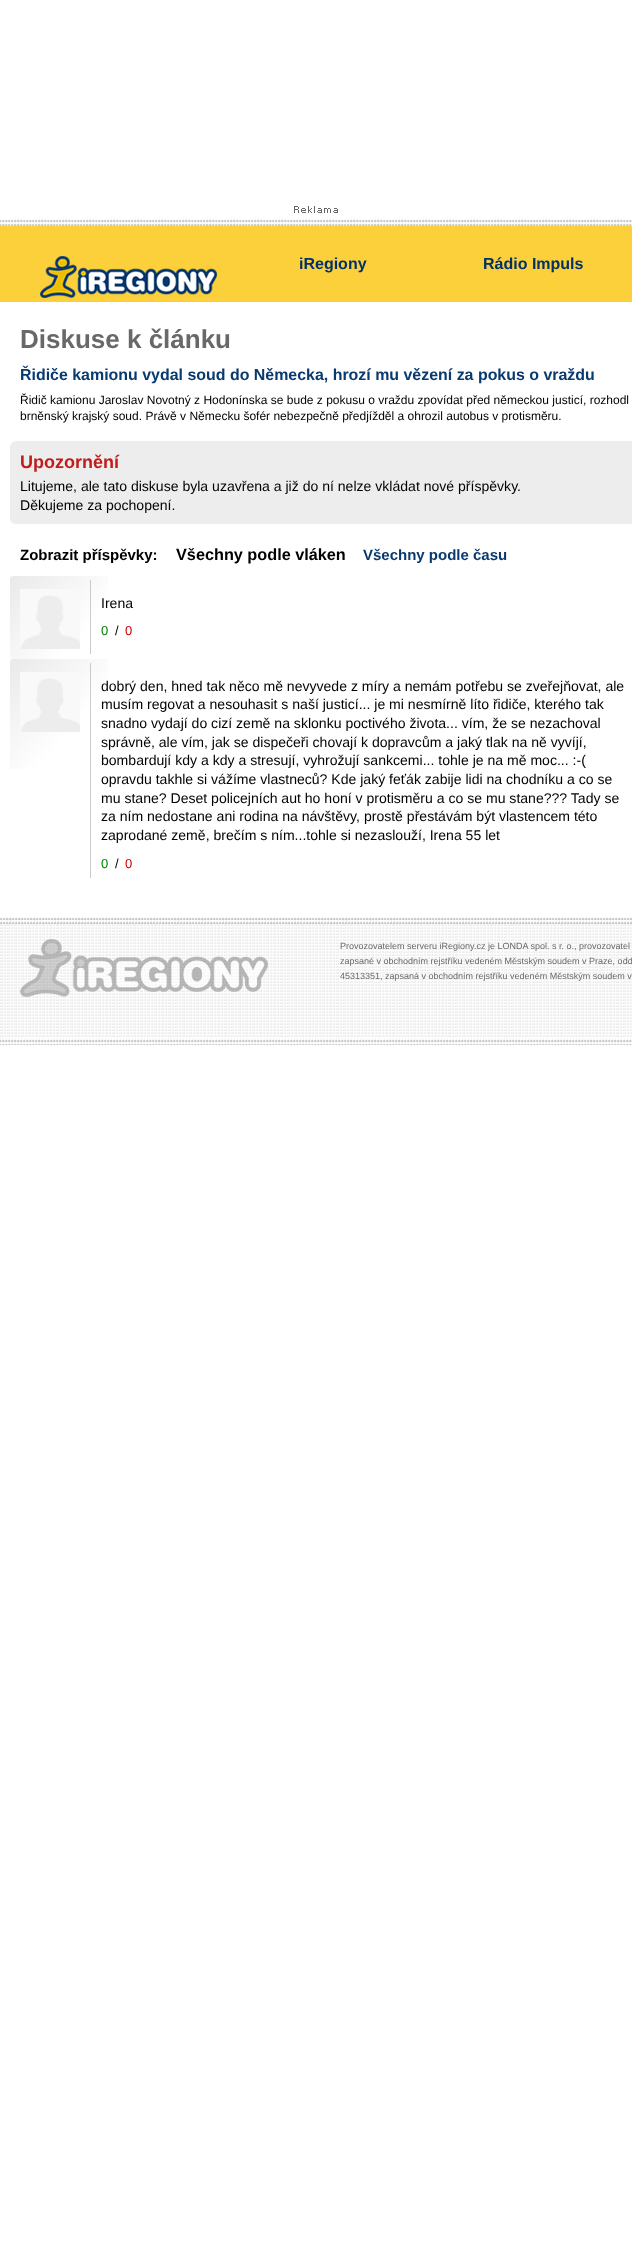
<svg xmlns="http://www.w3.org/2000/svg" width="632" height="2259">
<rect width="100%" height="100%" fill="#fff"/>
<image x="294" y="206" width="44" height="7" href="media/1.png"/>
<image x="0" y="219" width="632" height="826" href="media/2.png"/>
<rect y="302" width="632" height="736" fill="#fff"/>
<rect y="226" width="632" height="76" fill="#fbd03b"/>
<image x="40" y="256" width="177" height="42" href="media/3.png"/>
<text x="299" y="269" style="font-family:Liberation Sans;font-size:16px;font-weight:bold;fill:#003169">iRegiony</text>
<text x="483" y="269" style="font-family:Liberation Sans;font-size:16px;font-weight:bold;fill:#003169">Rádio Impuls</text>
<text x="20" y="348" style="font-family:Liberation Sans;font-size:26px;font-weight:bold;fill:#686868">Diskuse k článku</text>
<text x="20" y="380" style="font-family:Liberation Sans;font-size:15.95px;font-weight:bold;fill:#093a6f">Řidiče kamionu vydal soud do Německa, hrozí mu vězení za pokus o vraždu</text>
<text x="20" y="404" style="font-family:Liberation Sans;font-size:12px;fill:#000">Řidič kamionu Jaroslav Novotný z Hodonínska se bude z pokusu o vraždu zpovídat před německou justicí, rozhodl</text>
<text x="20" y="420" style="font-family:Liberation Sans;font-size:12px;fill:#000">brněnský krajský soud. Právě v Německu šofér nebezpečně předjížděl a ohrozil autobus v protisměru.</text>
<rect x="10" y="441" width="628" height="83" rx="6" fill="#ededed"/>
<text x="20" y="468" style="font-family:Liberation Sans;font-size:18px;font-weight:bold;fill:#c11b1b">Upozornění</text>
<text x="20" y="491" style="font-family:Liberation Sans;font-size:14.05px;fill:#000">Litujeme, ale tato diskuse byla uzavřena a již do ní nelze vkládat nové příspěvky.</text>
<text x="20" y="510" style="font-family:Liberation Sans;font-size:14.05px;fill:#000">Děkujeme za pochopení.</text>
<text x="20" y="560" style="font-family:Liberation Sans;font-size:15px;font-weight:bold;fill:#000">Zobrazit příspěvky:</text>
<text x="176" y="560" style="font-family:Liberation Sans;font-size:16.25px;font-weight:bold;fill:#000">Všechny podle vláken</text>
<text x="363" y="560" style="font-family:Liberation Sans;font-size:15px;font-weight:bold;fill:#093a6f">Všechny podle času</text>
<image x="10" y="576" width="98" height="83" href="media/4.png"/>
<image x="20" y="589" width="60" height="60" href="media/5.png"/>
<rect x="90" y="580" width="1" height="74" fill="#ccc"/>
<text x="101" y="608" style="font-family:Liberation Sans;font-size:14.05px;fill:#000">Irena</text>
<text x="101" y="635" style="font-family:Liberation Sans;font-size:13px;fill:#080">0</text>
<text x="115" y="635" style="font-family:Liberation Sans;font-size:13px;fill:#000">/</text>
<text x="125" y="635" style="font-family:Liberation Sans;font-size:13px;fill:#c00">0</text>
<image x="10" y="659" width="98" height="110" href="media/6.png"/>
<image x="20" y="672" width="60" height="60" href="media/5.png"/>
<rect x="90" y="663" width="1" height="215" fill="#ccc"/>
<text x="101" y="691" style="font-family:Liberation Sans;font-size:14.05px;fill:#000">dobrý den, hned tak něco mě nevyvede z míry a nemám potřebu se zveřejňovat, ale</text>
<text x="101" y="709" style="font-family:Liberation Sans;font-size:14.05px;fill:#000">musím regovat a nesouhasit s naší justicí... je mi nesmírně líto řidiče, kterého tak</text>
<text x="101" y="728" style="font-family:Liberation Sans;font-size:14.05px;fill:#000">snadno vydají do cizí země na sklonku poctivého života... vím, že se nezachoval</text>
<text x="101" y="747" style="font-family:Liberation Sans;font-size:14.05px;fill:#000">správně, ale vím, jak se dispečeři chovají k dopravcům a jaký tlak na ně vyvíjí,</text>
<text x="101" y="765" style="font-family:Liberation Sans;font-size:14.05px;fill:#000">bombardují kdy a kdy a stresují, vyhrožují sankcemi... tohle je na mě moc... :-(</text>
<text x="101" y="784" style="font-family:Liberation Sans;font-size:14.05px;fill:#000">opravdu takhle si vážíme vlastneců? Kde jaký feťák zabije lidi na chodníku a co se</text>
<text x="101" y="803" style="font-family:Liberation Sans;font-size:14.05px;fill:#000">mu stane? Deset policejních aut ho honí v protisměru a co se mu stane??? Tady se</text>
<text x="101" y="821" style="font-family:Liberation Sans;font-size:14.05px;fill:#000">za ním nedostane ani rodina na návštěvy, prostě přestávám být vlastencem této</text>
<text x="101" y="840" style="font-family:Liberation Sans;font-size:14.05px;fill:#000">zaprodané země, brečím s ním...tohle si nezaslouží, Irena 55 let</text>
<text x="101" y="868" style="font-family:Liberation Sans;font-size:13px;fill:#080">0</text>
<text x="115" y="868" style="font-family:Liberation Sans;font-size:13px;fill:#000">/</text>
<text x="125" y="868" style="font-family:Liberation Sans;font-size:13px;fill:#c00">0</text>
<image x="0" y="917" width="632" height="7" href="media/7.png"/>
<image x="0" y="924" width="632" height="113" href="media/8.png"/>
<image x="20" y="939" width="248" height="58" href="media/9.png"/>
<text x="340" y="949" style="font-family:Liberation Sans;font-size:9px;fill:#686868">Provozovatelem serveru iRegiony.cz je LONDA spol. s r. o., provozovatel</text>
<text x="340" y="964" style="font-family:Liberation Sans;font-size:9px;fill:#686868">zapsané v obchodním rejstříku vedeném Městským soudem v Praze, odd</text>
<text x="340" y="979" style="font-family:Liberation Sans;font-size:9px;fill:#686868">45313351, zapsaná v obchodním rejstříku vedeném Městským soudem v</text>
</svg>
